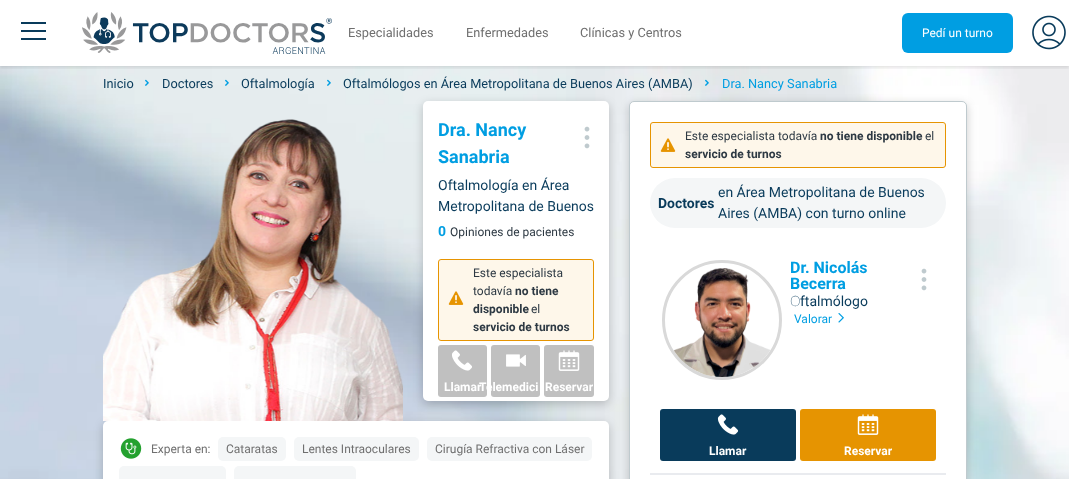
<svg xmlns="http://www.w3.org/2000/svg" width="1069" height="479">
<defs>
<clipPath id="clip1"><rect x="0" y="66" width="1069" height="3"/></clipPath>
</defs>
<rect width="100%" height="100%" fill="#fff"/>
<image x="0" y="66" width="1069" height="413" href="media/3.png"/>
<g clip-path="url(#clip1)">
<rect y="2" width="1069" height="66" fill="#0a0a0a1a" filter="blur(1.5px)"/>
</g>
<rect x="21" y="22" width="25" height="2" fill="#093b5b"/>
<rect x="21" y="30" width="25" height="2" fill="#093b5b"/>
<rect x="21" y="38" width="25" height="2" fill="#093b5b"/>
<image x="82" y="12" width="250" height="42" href="media/1.png"/>
<text x="348" y="37" style="font-family:Roboto;font-size:12.8px;fill:#6f6f6f">Especialidades</text>
<text x="466" y="37" style="font-family:Roboto;font-size:12.8px;fill:#6f6f6f">Enfermedades</text>
<text x="580" y="37" style="font-family:Roboto;font-size:12.8px;fill:#6f6f6f">Clínicas y Centros</text>
<rect x="902" y="13" width="111" height="40" rx="6" fill="#009ee2"/>
<text x="922" y="37" style="font-family:Roboto;font-size:12px;fill:#fff">Pedí un turno</text>
<image x="1032" y="15" width="34" height="35" href="media/2.png"/>
<text x="103" y="88" style="font-family:Roboto;font-size:12.8px;fill:#093b5b">Inicio</text>
<image x="145" y="79" width="4" height="7" href="media/4.png"/>
<text x="162" y="88" style="font-family:Roboto;font-size:12.8px;fill:#093b5b">Doctores</text>
<image x="225" y="79" width="4" height="7" href="media/5.png"/>
<text x="241" y="88" style="font-family:Roboto;font-size:12.8px;fill:#093b5b">Oftalmología</text>
<image x="327" y="79" width="4" height="7" href="media/6.png"/>
<rect x="629" y="104" width="338" height="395" rx="5" fill="#00000033" filter="blur(5px)"/>
<text x="343" y="88" style="font-family:Roboto;font-size:12.8px;fill:#093b5b">Oftalmólogos en Área Metropolitana de Buenos Aires (AMBA)</text>
<image x="705" y="79" width="4" height="7" href="media/7.png"/>
<text x="722" y="88" style="font-family:Roboto;font-size:12.8px;fill:#009ee2">Dra. Nancy Sanabria</text>
<rect x="103" y="424" width="506" height="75" rx="5" fill="#00000033" filter="blur(5px)"/>
<image x="103" y="119" width="300" height="302" href="media/8.png"/>
<rect x="423" y="104" width="186" height="300" rx="5" fill="#00000033" filter="blur(5px)"/>
<rect x="423" y="101" width="186" height="300" rx="5" fill="#fff"/>
<text x="438" y="136" style="font-family:Roboto;font-size:18px;font-weight:bold;fill:#009ee2">Dra. Nancy</text>
<text x="438" y="163" style="font-family:Roboto;font-size:18px;font-weight:bold;fill:#009ee2">Sanabria</text>
<text x="438" y="190" style="font-family:Roboto;font-size:14px;fill:#093b5b">Oftalmología en Área</text>
<text x="438" y="211" style="font-family:Roboto;font-size:14px;fill:#093b5b">Metropolitana de Buenos</text>
<text x="438" y="236" style="font-family:Roboto;font-size:14px;font-weight:bold;fill:#009ee2">0</text>
<text x="450" y="236" style="font-family:Roboto;font-size:12px;fill:#2d3943">Opiniones de pacientes</text>
<image x="584" y="126" width="6" height="23" href="media/9.png"/>
<rect x="438.5" y="259.5" width="155" height="81" rx="2.5" fill="#fef7ea" stroke="#e69401"/>
<image x="448" y="291" width="16" height="14" href="media/10.png"/>
<text x="473" y="277" style="font-family:Roboto;font-size:12px;fill:#2d3943">Este especialista</text>
<text x="473" y="295" style="font-family:Roboto;font-size:12px;fill:#2d3943">todavía</text>
<text x="515" y="295" style="font-family:Roboto;font-size:12px;font-weight:bold;fill:#2d3943">no tiene</text>
<text x="473" y="313" style="font-family:Roboto;font-size:12px;font-weight:bold;fill:#2d3943">disponible</text>
<text x="531" y="313" style="font-family:Roboto;font-size:12px;fill:#2d3943">el</text>
<text x="473" y="331" style="font-family:Roboto;font-size:12px;font-weight:bold;fill:#2d3943">servicio de turnos</text>
<rect x="438" y="345" width="49" height="52" rx="3" fill="#c0c0c0"/>
<image x="452" y="350" width="20" height="21" href="media/11.png"/>
<text x="444" y="391" style="font-family:Roboto;font-size:12px;font-weight:bold;fill:#fff">Llamar</text>
<rect x="491" y="345" width="49" height="52" rx="3" fill="#c0c0c0"/>
<image x="506" y="354" width="20" height="13" href="media/12.png"/>
<text x="479" y="391" style="font-family:Roboto;font-size:12px;font-weight:bold;fill:#fff">Telemedici</text>
<rect x="544" y="345" width="50" height="52" rx="3" fill="#c0c0c0"/>
<image x="558" y="350" width="22" height="21" href="media/13.png"/>
<text x="545" y="391" style="font-family:Roboto;font-size:12px;font-weight:bold;fill:#fff">Reservar</text>
<rect x="103" y="421" width="506" height="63" rx="5" fill="#fff"/>
<image x="120" y="438" width="22" height="21" href="media/14.png"/>
<text x="151" y="453" style="font-family:Roboto;font-size:12px;fill:#6f6f6f">Experta en:</text>
<rect x="218" y="437" width="68" height="24" rx="5" fill="#f4f6f7"/>
<text x="226" y="453" style="font-family:Roboto;font-size:12px;fill:#6f6f6f">Cataratas</text>
<rect x="294" y="437" width="125" height="24" rx="5" fill="#f4f6f7"/>
<text x="302" y="453" style="font-family:Roboto;font-size:12px;fill:#6f6f6f">Lentes Intraoculares</text>
<rect x="427" y="437" width="165" height="24" rx="5" fill="#f4f6f7"/>
<text x="435" y="453" style="font-family:Roboto;font-size:12px;fill:#6f6f6f">Cirugía Refractiva con Láser</text>
<rect x="119" y="466" width="107" height="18" rx="5" fill="#f4f6f7"/>
<rect x="234" y="466" width="122" height="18" rx="5" fill="#f4f6f7"/>
<rect x="629.5" y="101.5" width="337" height="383" rx="4.5" fill="#fff" stroke="#bfcace"/>
<rect x="650.5" y="122.5" width="295" height="45" rx="2.5" fill="#fef7ea" stroke="#e69401"/>
<image x="660" y="138" width="16" height="14" href="media/10.png"/>
<text x="685" y="140" style="font-family:Roboto;font-size:12px;fill:#2d3943">Este especialista todavía</text>
<text x="820" y="140" style="font-family:Roboto;font-size:12px;font-weight:bold;fill:#2d3943">no tiene disponible</text>
<text x="925" y="140" style="font-family:Roboto;font-size:12px;fill:#2d3943">el</text>
<text x="685" y="158" style="font-family:Roboto;font-size:12px;font-weight:bold;fill:#2d3943">servicio de turnos</text>
<rect x="650" y="178" width="296" height="50" rx="25" fill="#f4f6f7"/>
<text x="718" y="197" style="font-family:Roboto;font-size:14px;fill:#093b5b">en Área Metropolitana de Buenos</text>
<text x="658" y="208" style="font-family:Roboto;font-size:14px;font-weight:bold;fill:#093b5b">Doctores</text>
<text x="718" y="218" style="font-family:Roboto;font-size:14px;fill:#093b5b">Aires (AMBA) con turno online</text>
<circle cx="722" cy="320" r="58.5" fill="none" stroke="#d9d9d9" stroke-width="3"/>
<image x="674" y="268" width="96" height="109" href="media/15.png"/>
<text x="790" y="273" style="font-family:Roboto;font-size:16px;font-weight:bold;fill:#009ee2">Dr. Nicolás</text>
<text x="790" y="289" style="font-family:Roboto;font-size:16px;font-weight:bold;fill:#009ee2">Becerra</text>
<text x="790" y="306" style="font-family:Noto Sans;font-size:14px;font-weight:100;fill:#093b5b">O</text>
<text x="800" y="306" style="font-family:Roboto;font-size:14px;fill:#093b5b">ftalmólogo</text>
<text x="794" y="323" style="font-family:Roboto;font-size:12px;fill:#009ee2">Valorar</text>
<image x="838" y="313" width="6" height="10" href="media/16.png"/>
<image x="921" y="268" width="6" height="23" href="media/9.png"/>
<rect x="660" y="409" width="136" height="52" rx="3" fill="#093b5b"/>
<image x="717" y="414" width="22" height="21" href="media/17.png"/>
<text x="709" y="455" style="font-family:Roboto;font-size:12px;font-weight:bold;fill:#fff">Llamar</text>
<rect x="800" y="409" width="136" height="52" rx="3" fill="#e69401"/>
<image x="857" y="414" width="22" height="21" href="media/18.png"/>
<text x="844" y="455" style="font-family:Roboto;font-size:12px;font-weight:bold;fill:#fff">Reservar</text>
<rect x="650" y="473" width="296" height="2" fill="#e9ebef"/>
</svg>
